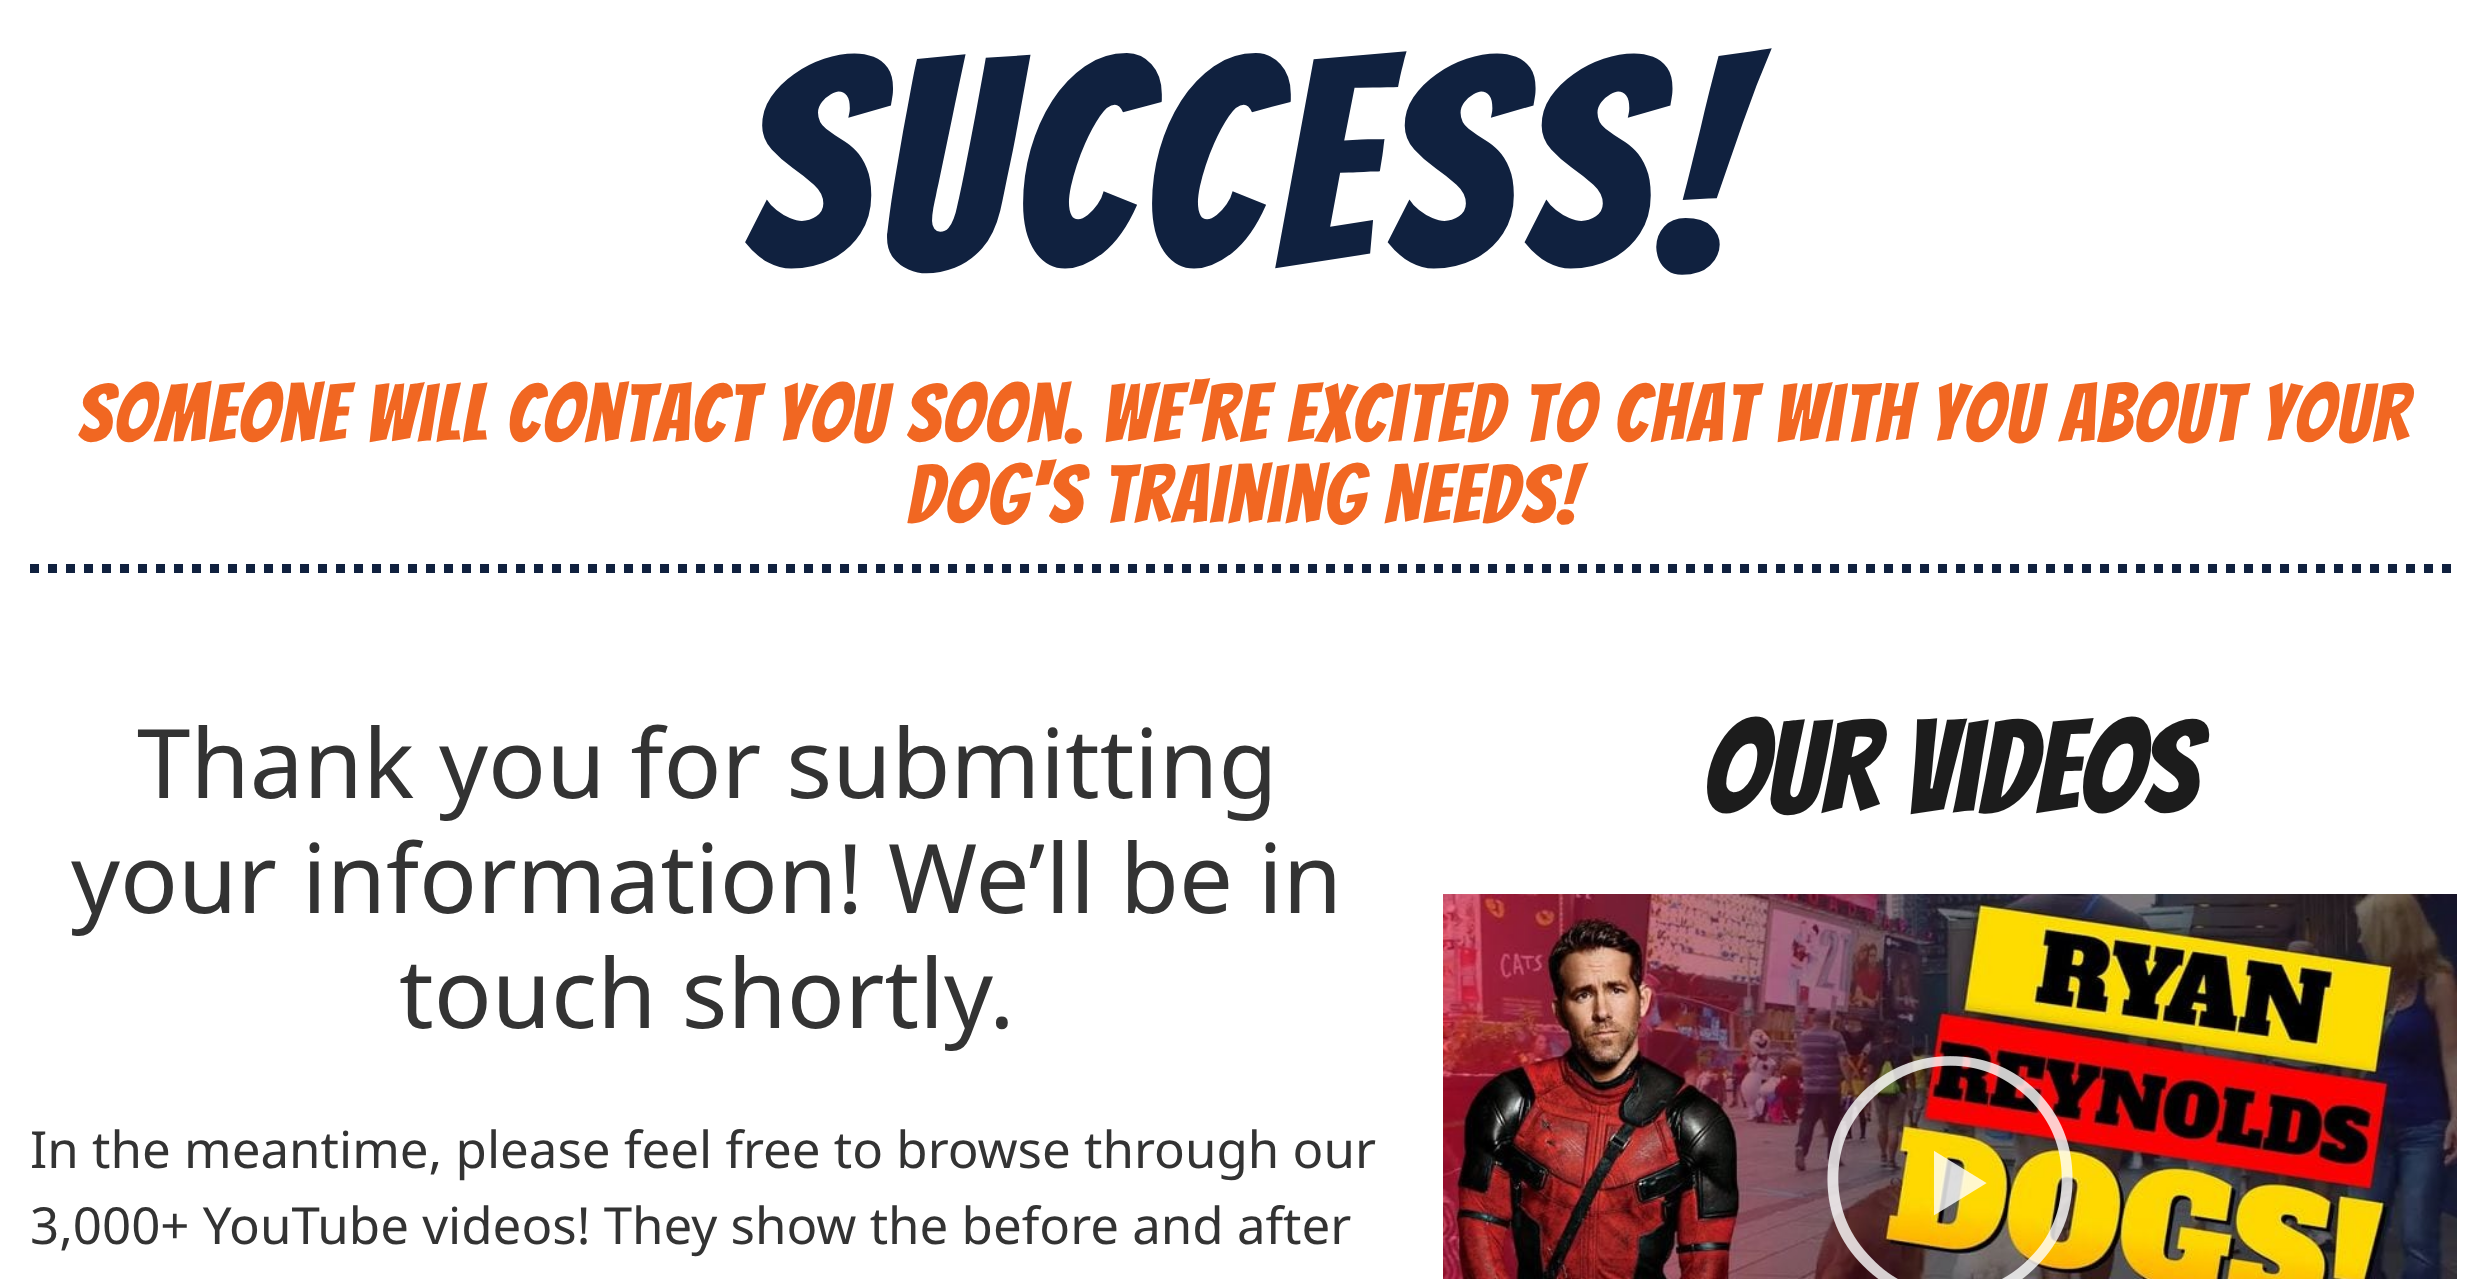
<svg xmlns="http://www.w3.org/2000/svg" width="2485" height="1279">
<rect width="100%" height="100%" fill="#fff"/>
<text x="741" y="268" style="font-family:Bangers;font-size:294px;letter-spacing:10.5px;fill:#10213f">SUCCESS!</text>
<text x="77" y="442" style="font-family:Bangers;font-size:81px;letter-spacing:2.1px;fill:#f16722">Someone Will Contact You Soon. We're Excited to Chat With You About Your</text>
<text x="907" y="523" style="font-family:Bangers;font-size:81px;letter-spacing:2.1px;fill:#f16722">Dog's Training Needs!</text>
<path d="M30 568.5h2427" fill="none" stroke="#10213f" stroke-width="9" stroke-dasharray="9 9"/>
<text x="137" y="798" style="font-family:Noto Sans;font-size:96px;fill:#333">Thank you for submitting</text>
<text x="71" y="913" style="font-family:Noto Sans;font-size:96px;fill:#333">your information! We’ll be in</text>
<text x="399" y="1028" style="font-family:Noto Sans;font-size:96px;fill:#333">touch shortly.</text>
<text x="30" y="1168" style="font-family:Noto Sans;font-size:51px;fill:#333">In the meantime, please feel free to browse through our</text>
<text x="30" y="1244" style="font-family:Noto Sans;font-size:51px;fill:#333">3,000+ YouTube videos! They show the before and after</text>
<text x="1703" y="813" style="font-family:Bangers;font-size:129px;fill:#1c1c1c">Our Videos</text>
<image x="1443" y="894" width="1014" height="385" href="media/1.png"/>
<image x="1827" y="1056" width="246" height="223" href="media/2.png"/>
</svg>
